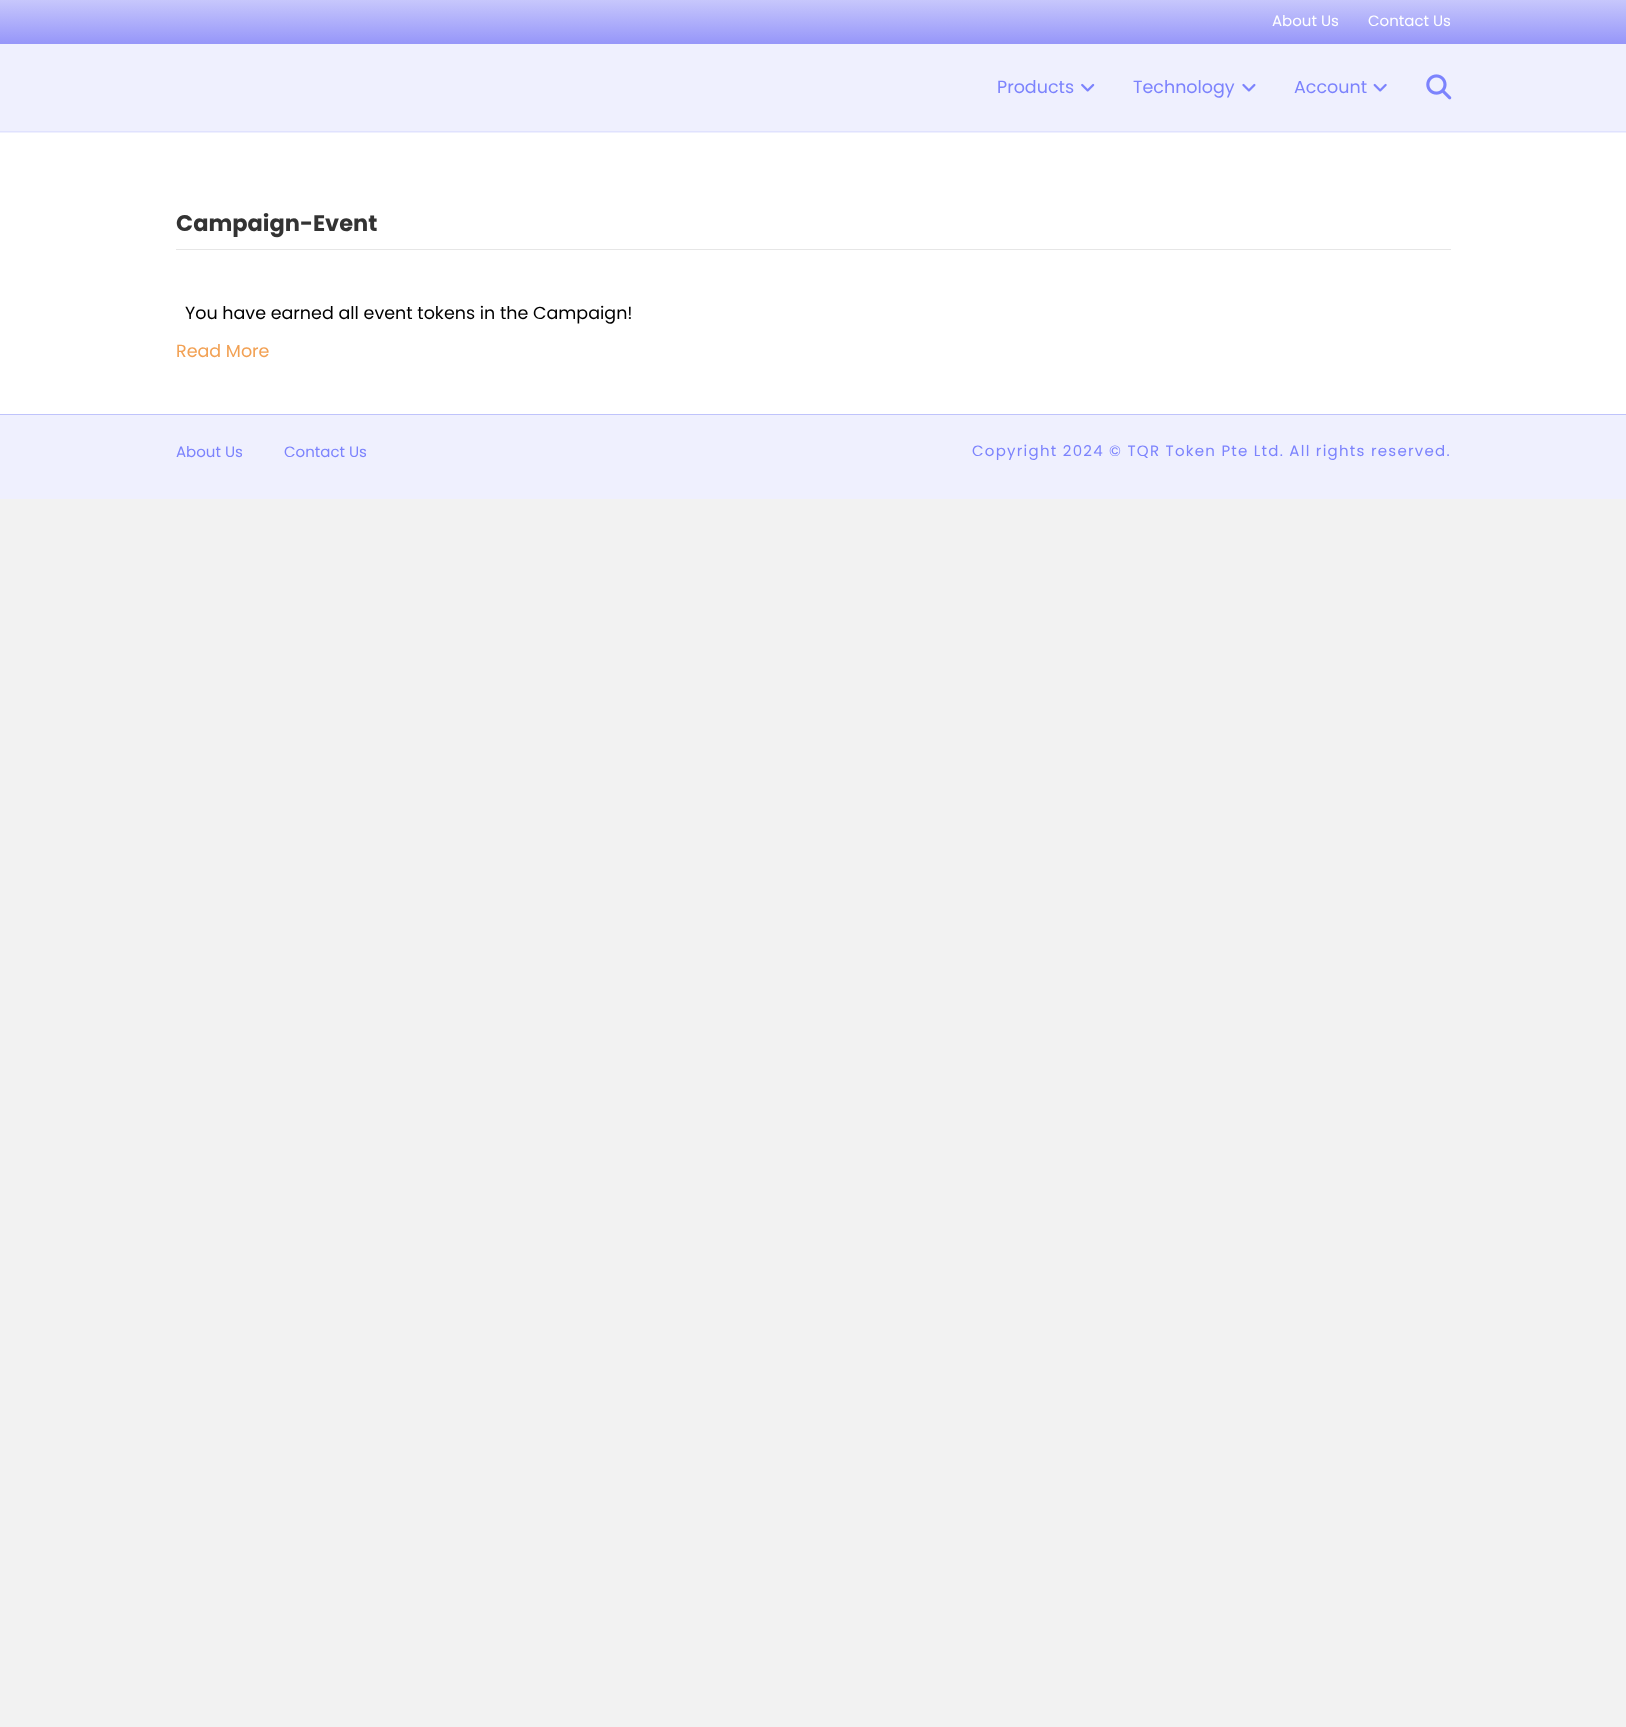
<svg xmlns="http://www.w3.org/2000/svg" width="1626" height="1727">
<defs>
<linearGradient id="g1" gradientUnits="userSpaceOnUse" x1="813" y1="0" x2="813" y2="43"><stop offset="0" stop-color="#c7c7fc"/><stop offset="1" stop-color="#9797f9"/></linearGradient>
</defs>
<rect width="100%" height="100%" fill="#f2f2f2"/>
<rect width="1626" height="43" fill="url(#g1)"/>
<rect y="43" width="1626" height="1" fill="#9797f9"/>
<text x="1272" y="26" style="font-family:Poppins;font-size:15px;fill:#fff">About Us</text>
<text x="1368" y="26" style="font-family:Poppins;font-size:15px;fill:#fff">Contact Us</text>
<rect y="44" width="1626" height="89" fill="#eff0fe"/>
<rect y="131" width="1626" height="1" fill="#e0e2fe"/>
<text x="997" y="93" style="font-family:Poppins;font-size:17.5px;fill:#7c83fd">Products</text>
<image x="1081" y="83" width="14" height="9" href="media/1.png"/>
<text x="1133" y="93" style="font-family:Poppins;font-size:17.5px;fill:#7c83fd">Technology</text>
<image x="1242" y="83" width="14" height="9" href="media/2.png"/>
<text x="1294" y="93" style="font-family:Poppins;font-size:17.5px;fill:#7c83fd">Account</text>
<image x="1373" y="83" width="14" height="9" href="media/3.png"/>
<image x="1426" y="74" width="26" height="26" href="media/4.png"/>
<rect y="133" width="1626" height="281" fill="#fff"/>
<rect x="176" y="249" width="1275" height="1" fill="#e6e6e6"/>
<text x="176" y="231" style="font-family:Poppins;font-size:22.5px;font-weight:bold;fill:#333">Campaign-Event</text>
<text x="185" y="319" style="font-family:Poppins;font-size:17.5px;fill:#000">You have earned all event tokens in the Campaign!</text>
<text x="176" y="357" style="font-family:Poppins;font-size:17.5px;fill:#f2a154">Read More</text>
<rect y="415" width="1626" height="84" fill="#eff0fe"/>
<rect y="414" width="1626" height="1" fill="#bfc3fb"/>
<text x="176" y="457" style="font-family:Poppins;font-size:15px;fill:#7c83fd">About Us</text>
<text x="284" y="457" style="font-family:Poppins;font-size:15px;fill:#7c83fd">Contact Us</text>
<text x="972" y="456" style="font-family:Poppins;font-size:15px;letter-spacing:1.25px;fill:#7c83fd">Copyright 2024 © TQR Token Pte Ltd. All rights reserved.</text>
</svg>
